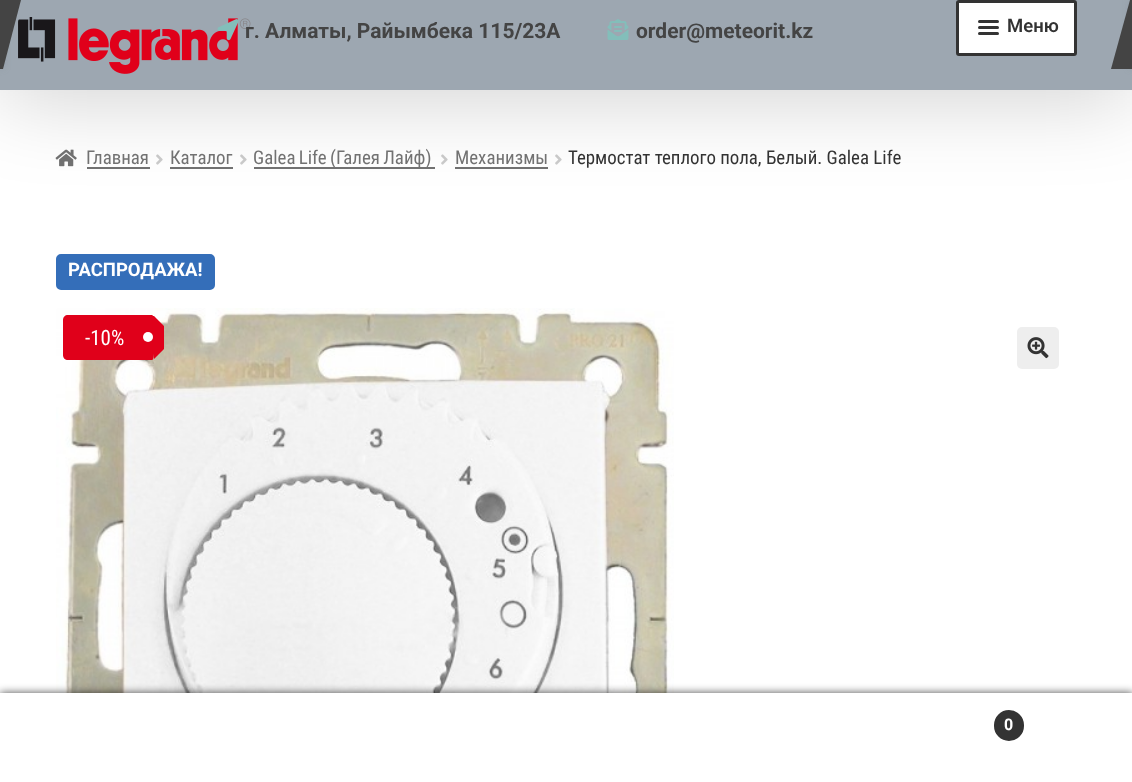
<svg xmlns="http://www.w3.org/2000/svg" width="1132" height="782">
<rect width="100%" height="100%" fill="#fff"/>
<image x="55" y="149" width="22" height="18" href="media/4.png"/>
<rect x="87" y="167" width="63" height="2" fill="#727272"/>
<image x="156" y="154" width="7" height="11" href="media/5.png"/>
<rect x="170" y="167" width="63" height="2" fill="#727272"/>
<image x="240" y="154" width="7" height="11" href="media/5.png"/>
<rect x="254" y="167" width="181" height="2" fill="#727272"/>
<image x="441" y="154" width="7" height="11" href="media/5.png"/>
<rect x="455" y="167" width="93" height="2" fill="#727272"/>
<image x="555" y="154" width="7" height="11" href="media/5.png"/>
<rect y="9" width="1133" height="90" fill="#0000002e" filter="blur(42px)"/>
<rect width="1132" height="90" fill="#9da7b1"/>
<image x="18" y="17" width="233" height="57" href="media/1.png"/>
<image x="217" y="19" width="22" height="22" href="media/2.png"/>
<text x="245" y="38" style="font-family:Roboto;font-size:21px;font-weight:bold;fill:#444">г. Алматы, Райымбека 115/23A</text>
<image x="607" y="19" width="22" height="21" href="media/3.png"/>
<text x="636" y="38" style="font-family:Roboto;font-size:21px;font-weight:bold;fill:#444">order@meteorit.kz</text>
<rect x="-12" y="3" width="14" height="63" fill="#71808899" filter="blur(4px)"/>
<path d="M-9 0h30l-18 69h-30z" fill="#444"/>
<rect x="1131" y="3" width="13" height="63" fill="#71808899" filter="blur(4px)"/>
<path d="M1130 0h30l-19 69h-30z" fill="#444"/>
<rect x="957.5" y="1.5" width="118" height="53" rx="1.5" fill="#fff" stroke="#333" stroke-width="3"/>
<rect x="978" y="20" width="21" height="3" rx="1.5" fill="#333"/>
<rect x="978" y="26" width="21" height="3" rx="1.5" fill="#333"/>
<text x="1007" y="32" style="font-family:Roboto;font-size:18.5px;font-weight:600;fill:#333">Меню</text>
<rect x="978" y="32" width="21" height="3" rx="1.5" fill="#333"/>
<text x="86" y="164" style="font-family:Roboto Condensed;font-size:18.9px;fill:#727272">Главная</text>
<text x="170" y="164" style="font-family:Roboto Condensed;font-size:18.9px;fill:#727272">Каталог</text>
<text x="253" y="164" word-spacing="-1" style="font-family:Roboto Condensed;font-size:18.9px;fill:#727272">Galea Life (Галея Лайф)</text>
<text x="455" y="164" style="font-family:Roboto Condensed;font-size:18.9px;fill:#727272">Механизмы</text>
<text x="568" y="164" style="font-family:Roboto Condensed;font-size:18.9px;fill:#333">Термостат теплого пола, Белый. Galea Life</text>
<rect x="57" y="255" width="157" height="34" rx="4" fill="#346eb9" stroke="#346eb9" stroke-width="2"/>
<text x="68" y="276" style="font-family:Roboto;font-size:18.5px;font-weight:bold;fill:#fff">РАСПРОДАЖА!</text>
<image x="56" y="308" width="618" height="385" href="media/6.png"/>
<rect x="1017" y="327" width="42" height="42" rx="5" fill="#eee"/>
<image x="1027" y="337" width="22" height="22" href="media/7.png"/>
<path d="M68 315h83.5c1 0 1.5 .5 1.5 1.5v42c0 1-.5 1.5-1.5 1.5h-83.5c-3 0-5-2-5-5v-35c0-3 2-5 5-5z" fill="#e0001a"/>
<text x="85" y="345" style="font-family:Roboto Condensed;font-size:21px;fill:#fff">-10%</text>
<path d="M153 316c0 5-1 41 1 43l10-10v-23l-10-10z" fill="#e0001a"/>
<circle cx="148" cy="337" r="5" fill="#fff"/>
<rect y="693" width="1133" height="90" fill="#000000b3" filter="blur(4.5px)"/>
<rect y="693" width="1132" height="2" fill="#fff"/>
<rect y="695" width="1132" height="87" fill="#fff"/>
<rect x="993" y="709" width="32" height="33" rx="16" fill="#333" stroke="#fff" stroke-width="2"/>
<text x="1004" y="730" style="font-family:Roboto;font-size:16px;font-weight:bold;fill:#fff">0</text>
</svg>
